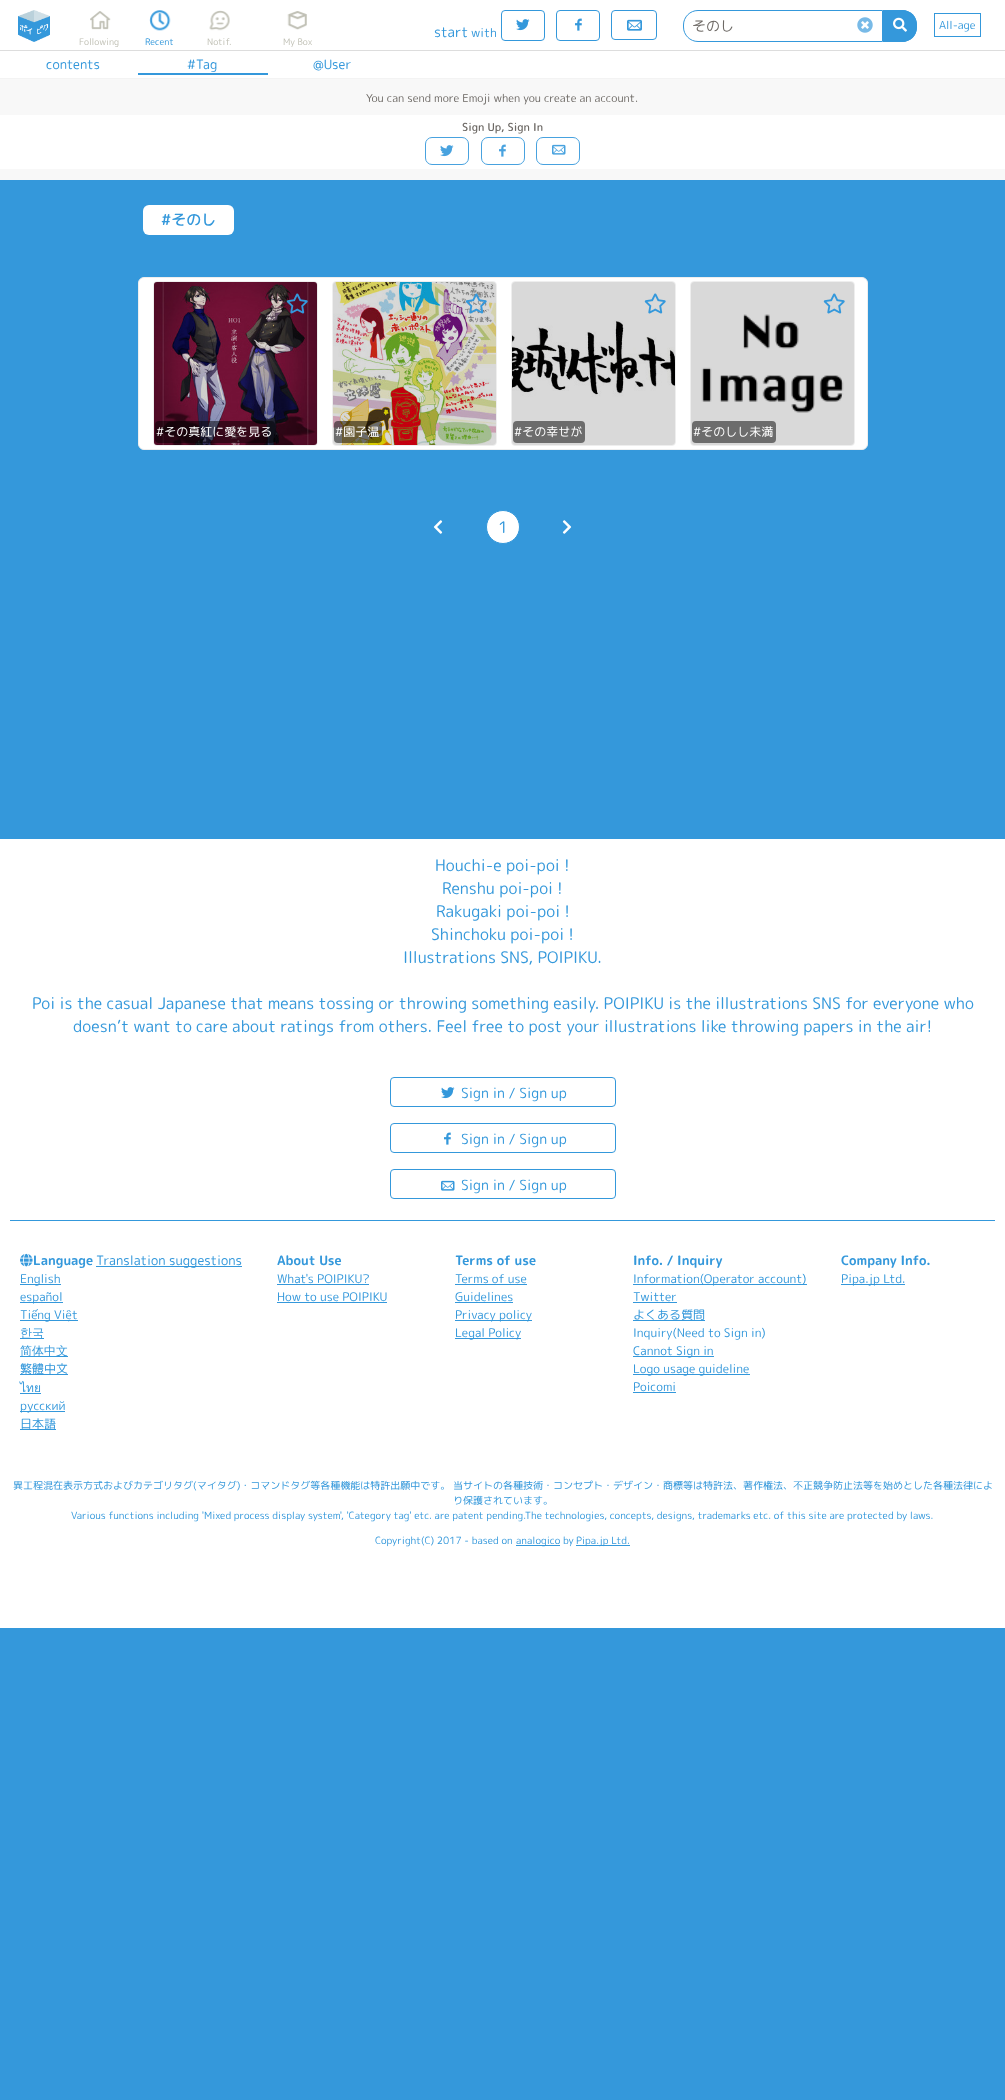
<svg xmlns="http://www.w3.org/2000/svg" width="1005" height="2100">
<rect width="100%" height="100%" fill="#3498db"/>
<rect width="1005" height="50" fill="#fff"/>
<rect y="50" width="1005" height="1" fill="#ddd"/>
<image x="18" y="10" width="32" height="32" href="media/1.png"/>
<text x="434" y="37" style="font-family:'Rounded Mplus 1c';font-size:14px;fill:#3498db">start</text>
<text x="471" y="37" style="font-family:'Rounded Mplus 1c';font-size:12px;fill:#3498db">with</text>
<rect x="501.5" y="10.5" width="43" height="30" rx="3.5" fill="none" stroke="#3498db"/>
<image x="516" y="19" width="14" height="12" href="media/2.png"/>
<rect x="556.5" y="10.5" width="43" height="30" rx="3.5" fill="none" stroke="#3498db"/>
<image x="575" y="18" width="7" height="13" href="media/3.png"/>
<rect x="611.5" y="10.5" width="45" height="29" rx="3.5" fill="none" stroke="#3498db"/>
<image x="627" y="19" width="15" height="12" href="media/4.png"/>
<path d="M698 10.5h184.5v31h-184.5c-8 0-14.5-6.5-14.5-14.5v-2c0-8 6.5-14.5 14.5-14.5z" fill="none" stroke="#3498db"/>
<text x="692" y="31" style="font-family:'Rounded Mplus 1c';font-size:14px;fill:#6d6965">そのし</text>
<image x="857" y="17" width="16" height="16" href="media/5.png"/>
<path d="M883 10h19c8.5 0 15 6.5 15 15v2c0 8.5-6.5 15-15 15h-19z" fill="#3498db"/>
<path d="M883 10h19c8.5 0 15 6.5 15 15v2c0 8.5-6.5 15-15 15h-19zm0 1h19c7.5 0 14 6.5 14 14v2c0 7.5-6.5 14-14 14h-19z" fill="#3498db" fill-rule="evenodd"/>
<image x="893" y="17" width="14" height="15" href="media/6.png"/>
<rect x="934.5" y="13.5" width="46" height="23" fill="none" stroke="#3498db"/>
<text x="939" y="29" style="font-family:'Rounded Mplus 1c';font-size:11px;fill:#3498db">All-age</text>
<image x="90" y="11" width="21" height="19" href="media/7.png"/>
<text x="79" y="45" style="font-family:'Rounded Mplus 1c';font-size:9px;fill:#c0c0b5">Following</text>
<image x="149" y="10" width="22" height="21" href="media/8.png"/>
<text x="145" y="45" style="font-family:'Rounded Mplus 1c';font-size:9px;fill:#3498db">Recent</text>
<image x="209" y="10" width="21" height="21" href="media/9.png"/>
<text x="207" y="45" style="font-family:'Rounded Mplus 1c';font-size:9px;fill:#c0c0b5">Notif.</text>
<image x="287" y="11" width="20" height="19" href="media/10.png"/>
<text x="283" y="45" style="font-family:'Rounded Mplus 1c';font-size:9px;fill:#c0c0b5">My Box</text>
<rect y="51" width="1005" height="27" fill="#fff"/>
<rect y="78" width="1005" height="1" fill="#f3f3f3"/>
<text x="46" y="69" style="font-family:'Rounded Mplus 1c';font-size:13px;fill:#3498db">contents</text>
<rect x="138" y="73" width="130" height="2" fill="#3498db"/>
<text x="187" y="69" style="font-family:'Rounded Mplus 1c';font-size:13px;fill:#3498db">#Tag</text>
<text x="313" y="69" style="font-family:'Rounded Mplus 1c';font-size:13px;fill:#3498db">@User</text>
<rect y="79" width="1005" height="101" fill="#f8f8f8"/>
<text x="366" y="102" style="font-family:'Rounded Mplus 1c';font-size:11px;fill:#6d6965">You can send more Emoji when you create an account.</text>
<rect y="115" width="1005" height="54" fill="#fff"/>
<text x="462" y="131" style="font-family:'Rounded Mplus 1c';font-size:11px;font-weight:500;fill:#6d6965">Sign Up, Sign In</text>
<rect x="425.5" y="137.5" width="43" height="27" rx="6.5" fill="none" stroke="#48a2df"/>
<image x="440" y="145" width="14" height="12" href="media/11.png"/>
<rect x="481.5" y="137.5" width="43" height="27" rx="6.5" fill="none" stroke="#48a2df"/>
<image x="499" y="144" width="7" height="13" href="media/12.png"/>
<rect x="536.5" y="137.5" width="43" height="27" rx="6.5" fill="none" stroke="#48a2df"/>
<image x="552" y="144" width="14" height="11" href="media/13.png"/>
<rect x="143" y="205" width="91" height="30" rx="6" fill="#fff"/>
<text x="161" y="225" style="font-family:'Rounded Mplus 1c';font-size:15px;font-weight:500;fill:#3498db">#そのし</text>
<rect x="138.5" y="277.5" width="729" height="172" rx="5.5" fill="#fff" stroke="#eee"/>
<rect x="153.5" y="281.5" width="164" height="164" rx="3.5" fill="none" stroke="#eee"/>
<image x="154" y="282" width="163" height="163" href="media/14.png"/>
<rect x="154" y="282" width="163" height="163" rx="3" fill="#00000026"/>
<image x="286" y="293" width="22" height="21" href="media/15.png"/>
<rect x="155" y="421" width="120" height="22" rx="4" fill="#00000080"/>
<text x="156" y="436" style="font-family:'Rounded Mplus 1c';font-size:12px;fill:#fff">#その真紅に愛を見る</text>
<rect x="332.5" y="281.5" width="164" height="164" rx="3.5" fill="none" stroke="#eee"/>
<image x="333" y="282" width="163" height="163" href="media/16.png"/>
<rect x="333" y="282" width="163" height="163" rx="3" fill="#00000026"/>
<image x="465" y="293" width="22" height="21" href="media/17.png"/>
<rect x="334" y="421" width="48" height="22" rx="4" fill="#00000080"/>
<text x="335" y="436" style="font-family:'Rounded Mplus 1c';font-size:12px;fill:#fff">#園子温</text>
<rect x="511.5" y="281.5" width="164" height="164" rx="3.5" fill="none" stroke="#eee"/>
<image x="512" y="282" width="163" height="163" href="media/18.png"/>
<rect x="512" y="282" width="163" height="163" rx="3" fill="#00000026"/>
<image x="644" y="293" width="22" height="21" href="media/19.png"/>
<rect x="513" y="421" width="72" height="22" rx="4" fill="#6c6c6c"/>
<text x="514" y="436" style="font-family:'Rounded Mplus 1c';font-size:12px;fill:#fff">#その幸せが</text>
<rect x="690.5" y="281.5" width="164" height="164" rx="3.5" fill="none" stroke="#eee"/>
<image x="691" y="282" width="163" height="163" href="media/20.png"/>
<rect x="691" y="282" width="163" height="163" rx="3" fill="#00000026"/>
<image x="823" y="293" width="22" height="21" href="media/19.png"/>
<rect x="692" y="421" width="84" height="22" rx="4" fill="#6c6c6c"/>
<text x="693" y="436" style="font-family:'Rounded Mplus 1c';font-size:12px;fill:#fff">#そのしし未満</text>
<image x="433" y="520" width="10" height="14" href="media/21.png"/>
<circle cx="503" cy="527" r="16.5" fill="#fff" stroke="#3498db"/>
<text x="498" y="533" style="font-family:'Rounded Mplus 1c';font-size:16px;fill:#3498db">1</text>
<image x="562" y="520" width="10" height="14" href="media/22.png"/>
<rect y="839" width="1005" height="789" fill="#fff"/>
<text x="435" y="871" style="font-family:'Rounded Mplus 1c';font-size:16px;fill:#3498db">Houchi-e poi-poi !</text>
<text x="442" y="894" style="font-family:'Rounded Mplus 1c';font-size:16px;fill:#3498db">Renshu poi-poi !</text>
<text x="436" y="917" style="font-family:'Rounded Mplus 1c';font-size:16px;fill:#3498db">Rakugaki poi-poi !</text>
<text x="431" y="940" style="font-family:'Rounded Mplus 1c';font-size:16px;fill:#3498db">Shinchoku poi-poi !</text>
<text x="403" y="963" style="font-family:'Rounded Mplus 1c';font-size:16px;fill:#3498db">Illustrations SNS, POIPIKU.</text>
<text x="32" y="1009" style="font-family:'Rounded Mplus 1c';font-size:16px;fill:#3498db">Poi is the casual Japanese that means tossing or throwing something easily. POIPIKU is the illustrations SNS for everyone who</text>
<text x="73" y="1032" style="font-family:'Rounded Mplus 1c';font-size:16px;fill:#3498db">doesn’t want to care about ratings from others. Feel free to post your illustrations like throwing papers in the air!</text>
<rect x="390.5" y="1077.5" width="225" height="29" rx="3.5" fill="none" stroke="#3498db"/>
<image x="441" y="1087" width="14" height="12" href="media/2.png"/>
<text x="461" y="1098" style="font-family:'Rounded Mplus 1c';font-size:14px;fill:#3498db">Sign in / Sign up</text>
<rect x="390.5" y="1123.5" width="225" height="29" rx="3.5" fill="none" stroke="#3498db"/>
<image x="444" y="1132" width="7" height="13" href="media/3.png"/>
<text x="461" y="1144" style="font-family:'Rounded Mplus 1c';font-size:14px;fill:#3498db">Sign in / Sign up</text>
<rect x="390.5" y="1169.5" width="225" height="29" rx="3.5" fill="none" stroke="#3498db"/>
<image x="441" y="1180" width="14" height="11" href="media/23.png"/>
<text x="461" y="1190" style="font-family:'Rounded Mplus 1c';font-size:14px;fill:#3498db">Sign in / Sign up</text>
<rect x="10" y="1220" width="985" height="1" fill="#3498db"/>
<image x="20" y="1253" width="13" height="14" href="media/24.png"/>
<text x="33" y="1265" style="font-family:'Rounded Mplus 1c Bold';font-size:13px;font-weight:bold;fill:#3498db">Language</text>
<rect x="96" y="1266" width="146" height="1" fill="#3498db"/>
<text x="96" y="1265" style="font-family:'Rounded Mplus 1c';font-size:13px;fill:#3498db">Translation suggestions</text>
<rect x="20" y="1284" width="41" height="1" fill="#3498db"/>
<text x="20" y="1283" style="font-family:'Rounded Mplus 1c';font-size:12px;fill:#3498db">English</text>
<rect x="20" y="1302" width="43" height="1" fill="#3498db"/>
<text x="20" y="1301" style="font-family:'Rounded Mplus 1c';font-size:12px;fill:#3498db">español</text>
<rect x="20" y="1320" width="58" height="1" fill="#3498db"/>
<text x="20" y="1319" style="font-family:'Rounded Mplus 1c';font-size:12px;fill:#3498db">Tiếng Việt</text>
<rect x="20" y="1338" width="24" height="1" fill="#3498db"/>
<text x="20" y="1337" style="font-family:WenQuanYi Zen Hei;font-size:12px;font-weight:500;fill:#3498db">한국</text>
<rect x="20" y="1356" width="48" height="1" fill="#3498db"/>
<text x="20" y="1355" style="font-family:WenQuanYi Zen Hei;font-size:12px;font-weight:500;fill:#3498db">简体中文</text>
<rect x="20" y="1374" width="48" height="1" fill="#3498db"/>
<text x="20" y="1373" style="font-family:'Rounded Mplus 1c';font-size:12px;fill:#3498db">繁體中文</text>
<text x="20" y="1392" style="font-family:Loma;font-size:12px;fill:#3498db">ไทย</text>
<rect x="20" y="1393" width="21" height="1" fill="#3498db"/>
<rect x="20" y="1411" width="45" height="1" fill="#3498db"/>
<text x="20" y="1410" style="font-family:'Rounded Mplus 1c';font-size:12px;fill:#3498db">русский</text>
<rect x="20" y="1429" width="36" height="1" fill="#3498db"/>
<text x="20" y="1428" style="font-family:'Rounded Mplus 1c';font-size:12px;fill:#3498db">日本語</text>
<text x="277" y="1265" style="font-family:'Rounded Mplus 1c Bold';font-size:13px;font-weight:bold;fill:#3498db">About Use</text>
<text x="277" y="1283" style="font-family:'Rounded Mplus 1c';font-size:12px;fill:#3498db">What's POIPIKU?</text>
<rect x="277" y="1284" width="92" height="1" fill="#3498db"/>
<text x="277" y="1301" style="font-family:'Rounded Mplus 1c';font-size:12px;fill:#3498db">How to use POIPIKU</text>
<rect x="277" y="1302" width="110" height="1" fill="#3498db"/>
<text x="455" y="1265" style="font-family:'Rounded Mplus 1c Bold';font-size:13px;font-weight:bold;fill:#3498db">Terms of use</text>
<text x="455" y="1283" style="font-family:'Rounded Mplus 1c';font-size:12px;fill:#3498db">Terms of use</text>
<rect x="455" y="1284" width="72" height="1" fill="#3498db"/>
<text x="455" y="1301" style="font-family:'Rounded Mplus 1c';font-size:12px;fill:#3498db">Guidelines</text>
<rect x="455" y="1302" width="58" height="1" fill="#3498db"/>
<rect x="455" y="1320" width="77" height="1" fill="#3498db"/>
<text x="455" y="1319" style="font-family:'Rounded Mplus 1c';font-size:12px;fill:#3498db">Privacy policy</text>
<rect x="455" y="1338" width="66" height="1" fill="#3498db"/>
<text x="455" y="1337" style="font-family:'Rounded Mplus 1c';font-size:12px;fill:#3498db">Legal Policy</text>
<text x="633" y="1265" style="font-family:'Rounded Mplus 1c Bold';font-size:13px;font-weight:bold;fill:#3498db">Info. / Inquiry</text>
<rect x="633" y="1284" width="174" height="1" fill="#3498db"/>
<text x="633" y="1283" style="font-family:'Rounded Mplus 1c';font-size:12px;fill:#3498db">Information(Operator account)</text>
<text x="633" y="1301" style="font-family:'Rounded Mplus 1c';font-size:12px;fill:#3498db">Twitter</text>
<rect x="633" y="1302" width="44" height="1" fill="#3498db"/>
<text x="633" y="1319" style="font-family:'Rounded Mplus 1c';font-size:12px;fill:#3498db">よくある質問</text>
<rect x="633" y="1320" width="72" height="1" fill="#3498db"/>
<text x="633" y="1337" style="font-family:'Rounded Mplus 1c';font-size:12px;fill:#3498db">Inquiry(Need to Sign in)</text>
<rect x="633" y="1356" width="81" height="1" fill="#3498db"/>
<text x="633" y="1355" style="font-family:'Rounded Mplus 1c';font-size:12px;fill:#3498db">Cannot Sign in</text>
<rect x="633" y="1374" width="117" height="1" fill="#3498db"/>
<text x="633" y="1373" style="font-family:'Rounded Mplus 1c';font-size:12px;fill:#3498db">Logo usage guideline</text>
<text x="633" y="1391" style="font-family:'Rounded Mplus 1c';font-size:12px;fill:#3498db">Poicomi</text>
<rect x="633" y="1392" width="43" height="1" fill="#3498db"/>
<text x="841" y="1265" style="font-family:'Rounded Mplus 1c Bold';font-size:13px;font-weight:bold;fill:#3498db">Company Info.</text>
<rect x="841" y="1284" width="64" height="1" fill="#3498db"/>
<text x="841" y="1283" style="font-family:'Rounded Mplus 1c';font-size:12px;fill:#3498db">Pipa.jp Ltd.</text>
<text x="13" y="1489" style="font-family:'Rounded Mplus 1c';font-size:10px;fill:#3498db">異工程混在表示方式およびカテゴリタグ(マイタグ)・コマンドタグ等各種機能は特許出願中です。 当サイトの各種技術・コンセプト・デザイン・商標等は特許法、著作権法、不正競争防止法等を始めとした各種法律によ</text>
<text x="453" y="1504" style="font-family:'Rounded Mplus 1c';font-size:10px;fill:#3498db">り保護されています。</text>
<text x="71" y="1519" style="font-family:'Rounded Mplus 1c';font-size:10px;fill:#3498db">Various functions including 'Mixed process display system', 'Category tag' etc. are patent pending.The technologies, concepts, designs, trademarks etc. of this site are protected by laws.</text>
<text x="375" y="1544" style="font-family:'Rounded Mplus 1c';font-size:10px;fill:#3498db">Copyright(C) 2017 - based on</text>
<rect x="516" y="1545" width="44" height="1" fill="#3498db"/>
<text x="516" y="1544" style="font-family:'Rounded Mplus 1c';font-size:10px;fill:#3498db">analogico by</text>
<rect x="576" y="1545" width="54" height="1" fill="#3498db"/>
<text x="576" y="1544" style="font-family:'Rounded Mplus 1c';font-size:10px;fill:#3498db">Pipa.jp Ltd.</text>
</svg>
